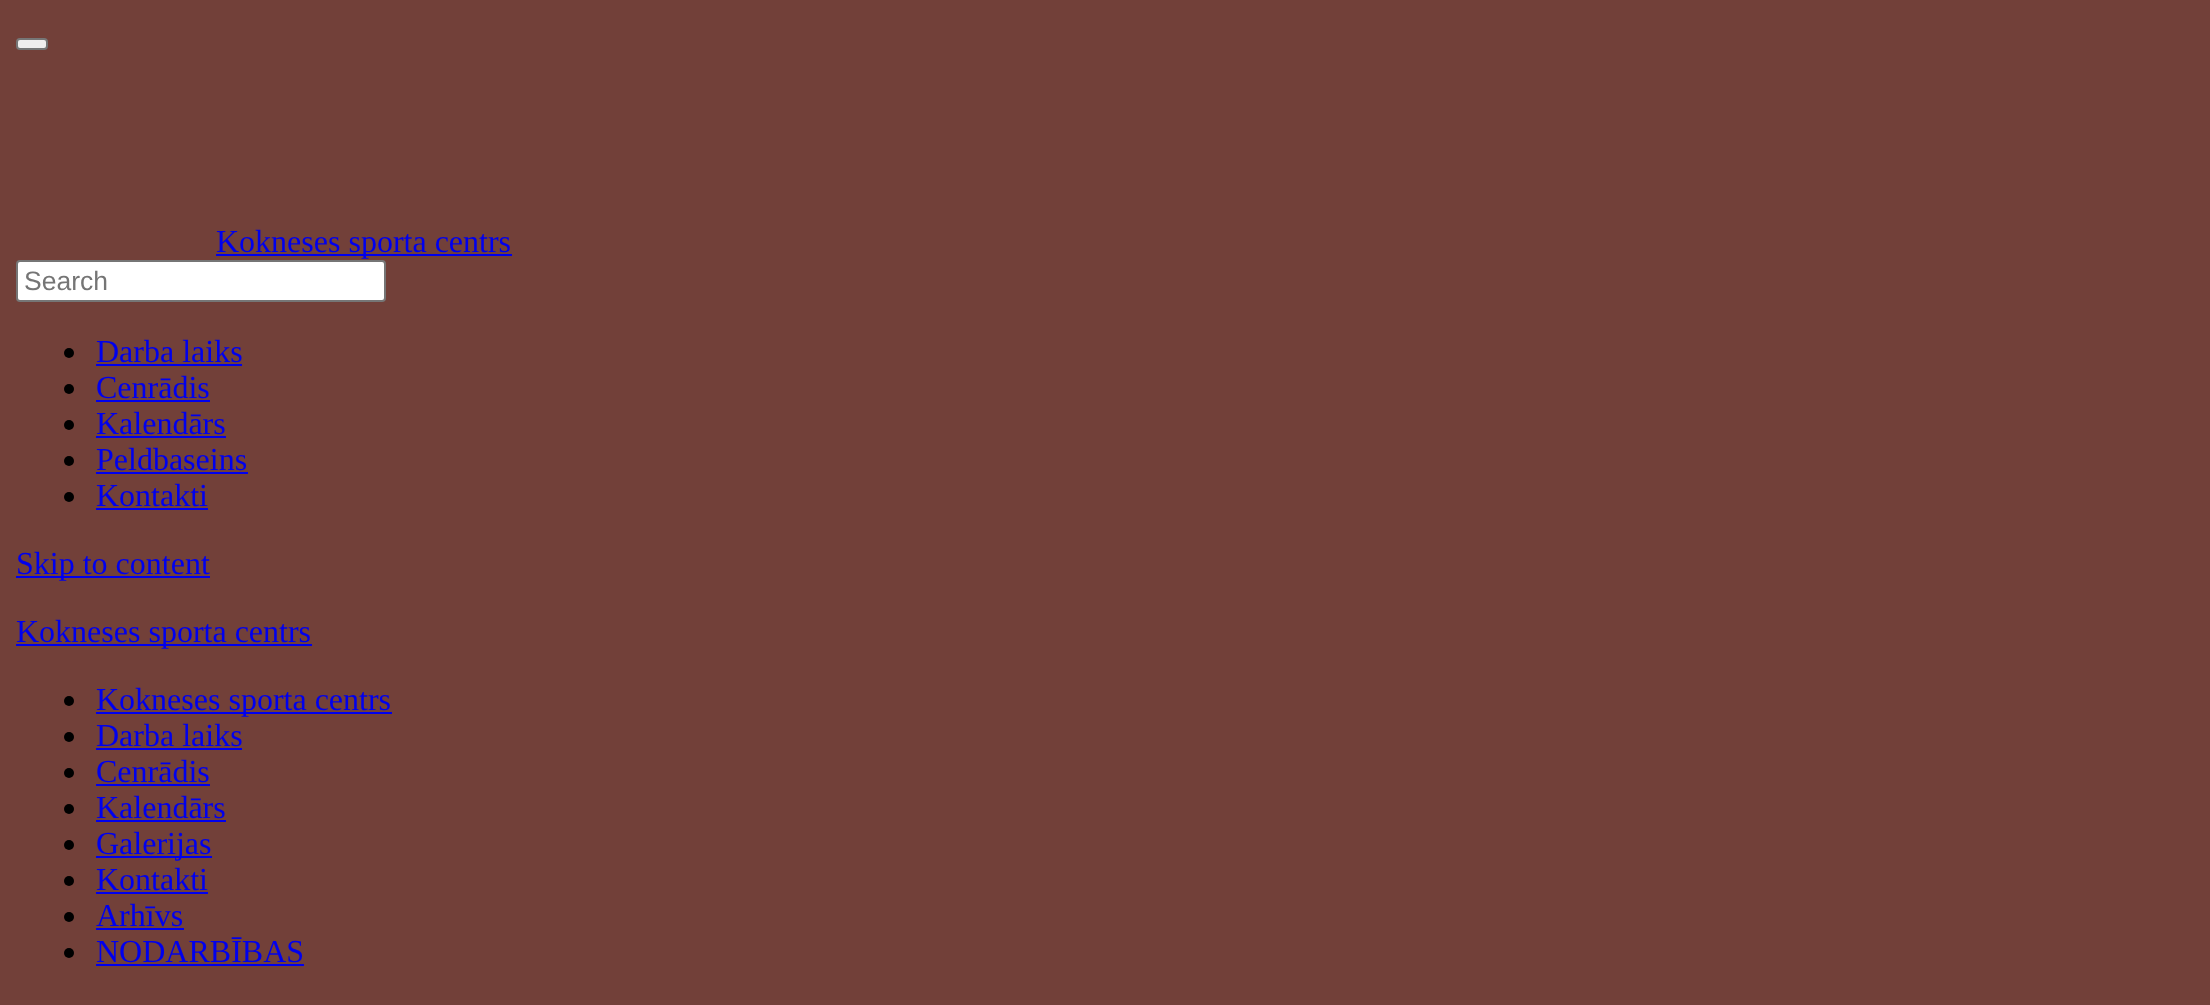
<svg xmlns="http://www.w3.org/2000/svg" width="2210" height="1005">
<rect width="100%" height="100%" fill="#724039"/>
<rect x="17" y="39" width="30" height="10" rx="3" fill="#efefef" stroke="#767676" stroke-width="2"/>
<rect x="216" y="254" width="296" height="2" fill="#00e"/>
<text x="216" y="252" style="font-family:Liberation Serif;font-size:32px;fill:#00e">Kokneses sporta centrs</text>
<rect x="17" y="261" width="368" height="40" rx="3" fill="#fff" stroke="#767676" stroke-width="2"/>
<text x="24" y="290" style="font-family:Liberation Sans;font-size:26.5px;fill:#757575">Search</text>
<circle cx="69" cy="353" r="5" fill="#000"/>
<text x="96" y="362" style="font-family:Liberation Serif;font-size:32px;fill:#00e">Darba laiks</text>
<rect x="96" y="364" width="146" height="2" fill="#00e"/>
<circle cx="69" cy="389" r="5" fill="#000"/>
<text x="96" y="398" style="font-family:Liberation Serif;font-size:32px;fill:#00e">Cenrādis</text>
<rect x="96" y="400" width="114" height="2" fill="#00e"/>
<circle cx="69" cy="425" r="5" fill="#000"/>
<text x="96" y="434" style="font-family:Liberation Serif;font-size:32px;fill:#00e">Kalendārs</text>
<rect x="96" y="436" width="130" height="2" fill="#00e"/>
<circle cx="69" cy="461" r="5" fill="#000"/>
<text x="96" y="470" style="font-family:Liberation Serif;font-size:32px;fill:#00e">Peldbaseins</text>
<rect x="96" y="472" width="152" height="2" fill="#00e"/>
<circle cx="69" cy="497" r="5" fill="#000"/>
<text x="96" y="506" style="font-family:Liberation Serif;font-size:32px;fill:#00e">Kontakti</text>
<rect x="96" y="508" width="112" height="2" fill="#00e"/>
<rect x="16" y="576" width="194" height="2" fill="#00e"/>
<text x="16" y="574" style="font-family:Liberation Serif;font-size:32px;fill:#00e">Skip to content</text>
<rect x="16" y="644" width="296" height="2" fill="#00e"/>
<text x="16" y="642" style="font-family:Liberation Serif;font-size:32px;fill:#00e">Kokneses sporta centrs</text>
<circle cx="69" cy="701" r="5" fill="#000"/>
<rect x="96" y="712" width="296" height="2" fill="#00e"/>
<text x="96" y="710" style="font-family:Liberation Serif;font-size:32px;fill:#00e">Kokneses sporta centrs</text>
<circle cx="69" cy="737" r="5" fill="#000"/>
<text x="96" y="746" style="font-family:Liberation Serif;font-size:32px;fill:#00e">Darba laiks</text>
<rect x="96" y="748" width="146" height="2" fill="#00e"/>
<circle cx="69" cy="773" r="5" fill="#000"/>
<text x="96" y="782" style="font-family:Liberation Serif;font-size:32px;fill:#00e">Cenrādis</text>
<rect x="96" y="784" width="114" height="2" fill="#00e"/>
<circle cx="69" cy="809" r="5" fill="#000"/>
<text x="96" y="818" style="font-family:Liberation Serif;font-size:32px;fill:#00e">Kalendārs</text>
<rect x="96" y="820" width="130" height="2" fill="#00e"/>
<circle cx="69" cy="845" r="5" fill="#000"/>
<rect x="96" y="856" width="116" height="2" fill="#00e"/>
<text x="96" y="854" style="font-family:Liberation Serif;font-size:32px;fill:#00e">Galerijas</text>
<circle cx="69" cy="881" r="5" fill="#000"/>
<text x="96" y="890" style="font-family:Liberation Serif;font-size:32px;fill:#00e">Kontakti</text>
<rect x="96" y="892" width="112" height="2" fill="#00e"/>
<circle cx="69" cy="917" r="5" fill="#000"/>
<text x="96" y="926" style="font-family:Liberation Serif;font-size:32px;fill:#00e">Arhīvs</text>
<rect x="96" y="928" width="88" height="2" fill="#00e"/>
<circle cx="69" cy="953" r="5" fill="#000"/>
<text x="96" y="962" style="font-family:Liberation Serif;font-size:32px;fill:#00e">NODARBĪBAS</text>
<rect x="96" y="964" width="208" height="2" fill="#00e"/>
</svg>
